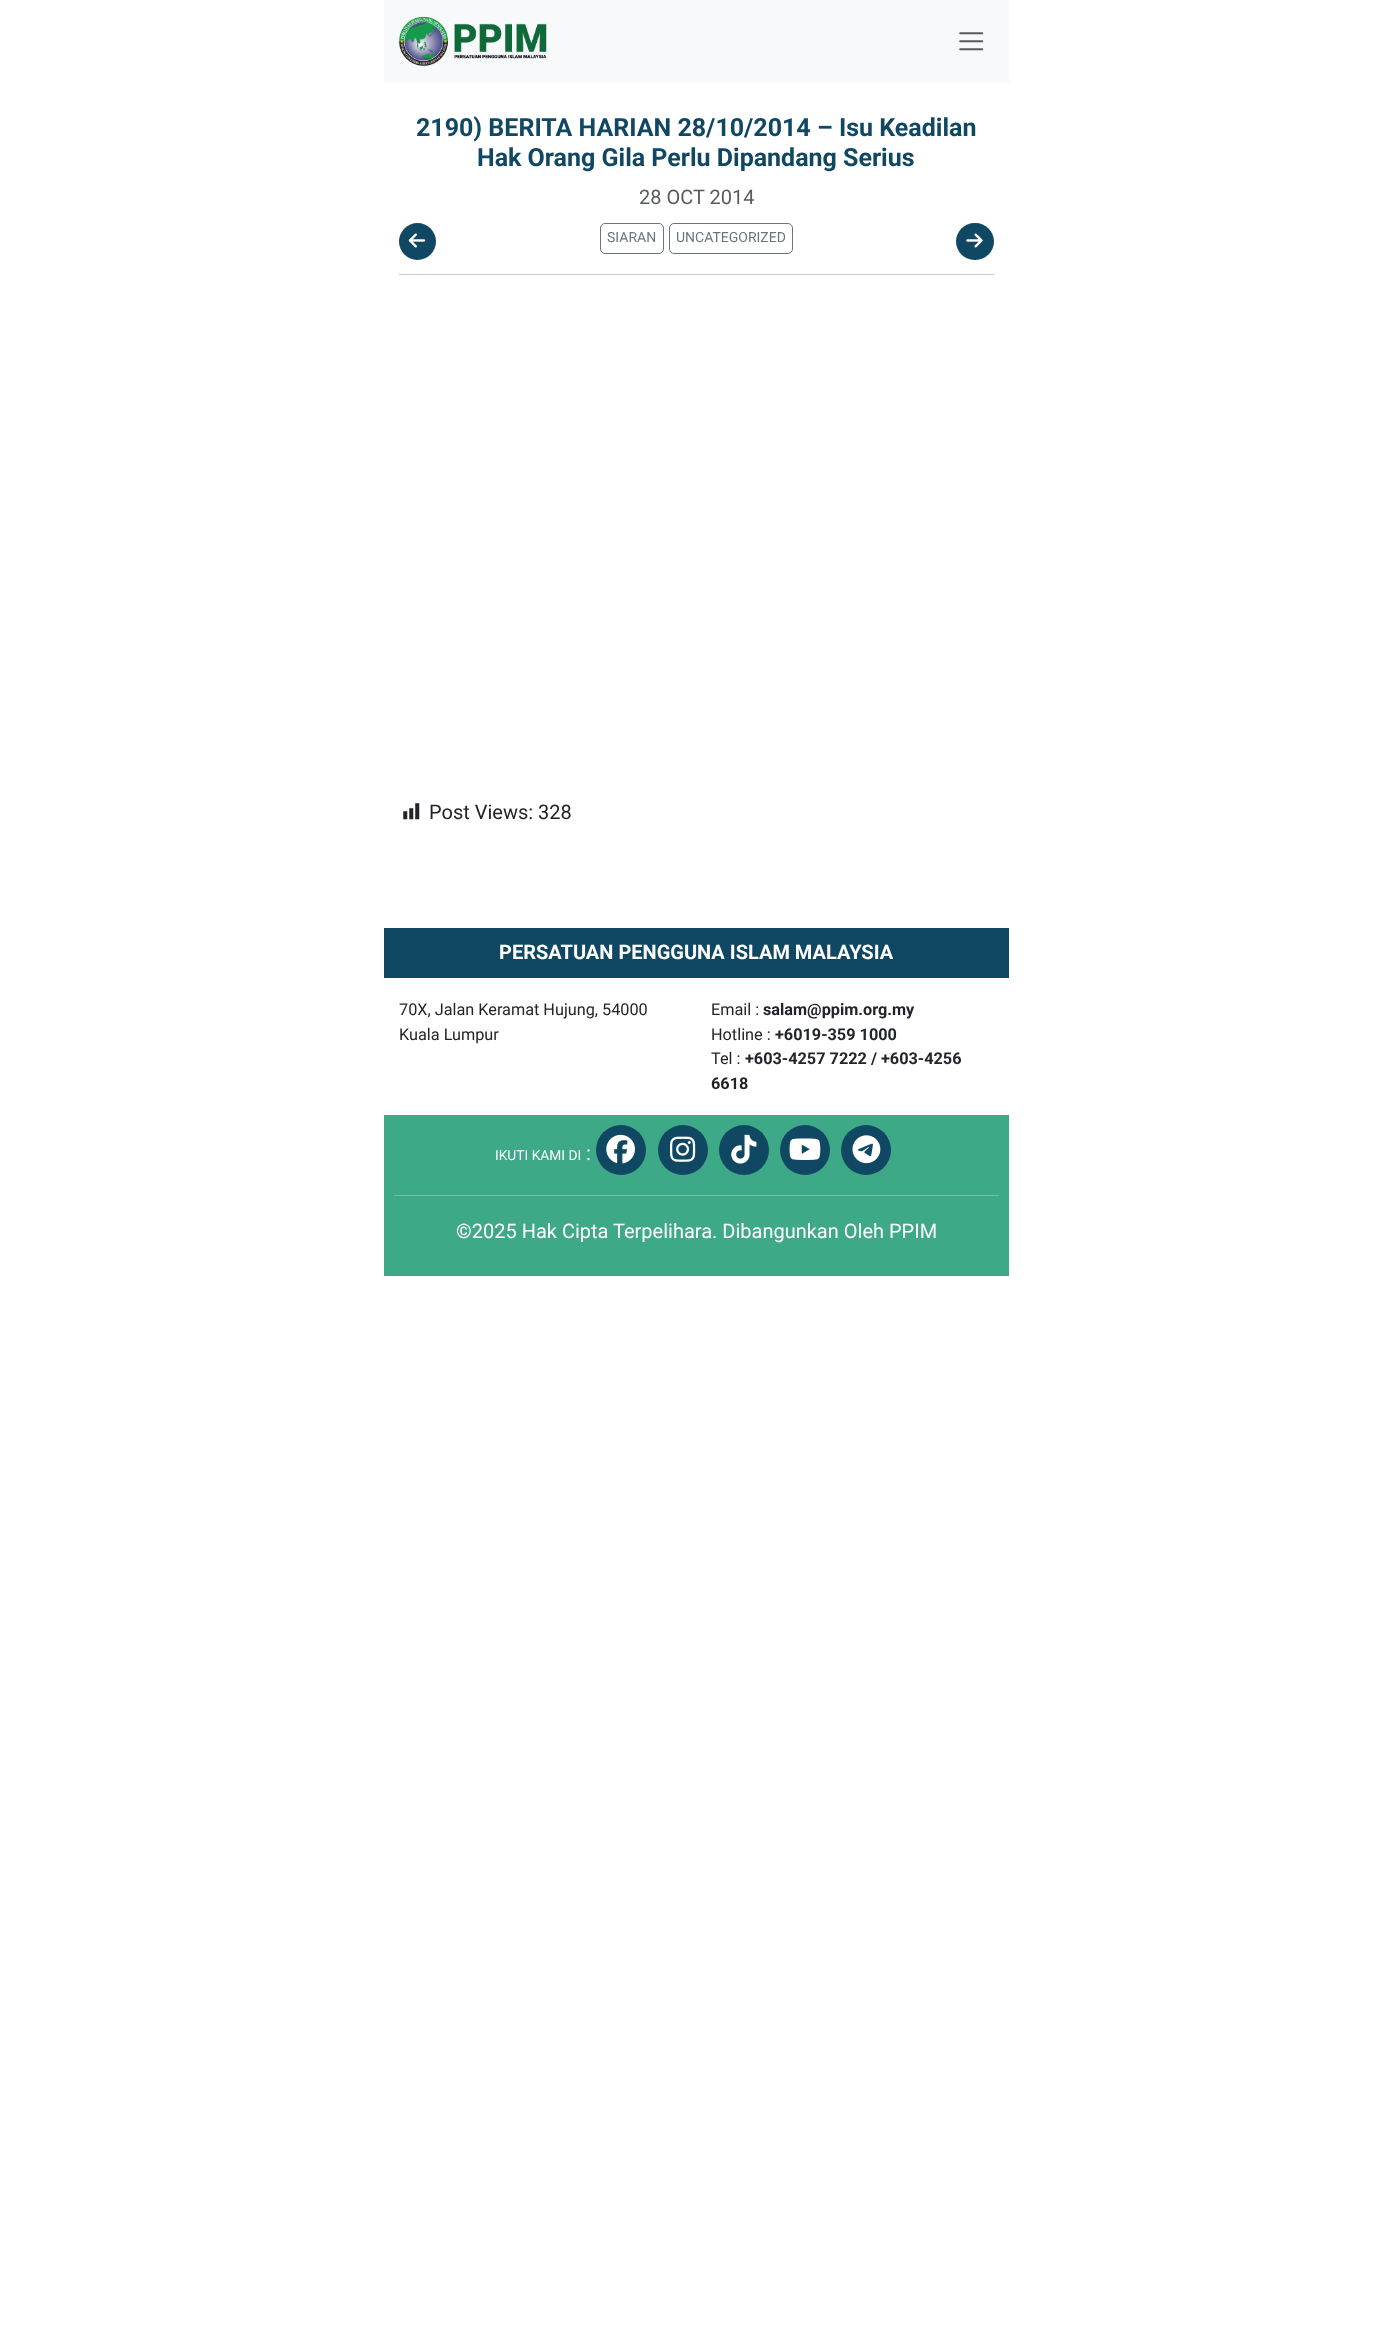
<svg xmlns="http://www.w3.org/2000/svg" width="1392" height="2348">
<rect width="100%" height="100%" fill="#fff"/>
<rect x="384" width="625" height="83" fill="#f8f9fa"/>
<image x="398" y="16" width="149" height="51" href="media/1.png"/>
<image x="959" y="32" width="25" height="19" href="media/2.png"/>
<text x="416" y="136" style="font-family:Roboto;font-size:25px;font-weight:bold;fill:#104863">2190) BERITA HARIAN 28/10/2014 – Isu Keadilan</text>
<text x="477" y="166" style="font-family:Roboto;font-size:25px;font-weight:bold;fill:#104863">Hak Orang Gila Perlu Dipandang Serius</text>
<text x="639" y="204" style="font-family:Roboto;font-size:20px;fill:#595c5f">28 OCT 2014</text>
<circle cx="417.5" cy="241.5" r="18.5" fill="#104863"/>
<image x="408" y="233" width="18" height="15" href="media/3.png"/>
<rect x="956" y="223" width="38" height="37" rx="18.5" fill="#104863"/>
<image x="966" y="233" width="17" height="15" href="media/4.png"/>
<rect x="600.5" y="223.5" width="63" height="30" rx="4.5" fill="none" stroke="#6c757d"/>
<text x="607" y="242" style="font-family:Roboto;font-size:14px;fill:#6c757d">SIARAN</text>
<rect x="669.5" y="223.5" width="123" height="30" rx="4.5" fill="none" stroke="#6c757d"/>
<text x="676" y="242" style="font-family:Roboto;font-size:14px;fill:#6c757d">UNCATEGORIZED</text>
<rect x="399" y="274" width="595" height="1" fill="#c8c9ca"/>
<image x="403" y="803" width="17" height="17" href="media/5.png"/>
<text x="429" y="819" style="font-family:Roboto;font-size:20px;fill:#212529">Post Views: 328</text>
<rect x="384" y="928" width="625" height="50" fill="#104863"/>
<text x="499" y="959" style="font-family:Roboto;font-size:20px;font-weight:bold;fill:#fff">PERSATUAN PENGGUNA ISLAM MALAYSIA</text>
<text x="399" y="1015" style="font-family:Roboto;font-size:16.25px;fill:#212529">70X, Jalan Keramat Hujung, 54000</text>
<text x="399" y="1040" style="font-family:Roboto;font-size:16.25px;fill:#212529">Kuala Lumpur</text>
<text x="711" y="1015" style="font-family:Roboto;font-size:16.25px;fill:#212529">Email :</text>
<text x="763" y="1015" style="font-family:Roboto;font-size:16.25px;font-weight:bold;fill:#212529">salam@ppim.org.my</text>
<text x="711" y="1040" style="font-family:Roboto;font-size:16.25px;fill:#212529">Hotline :</text>
<text x="775" y="1040" style="font-family:Roboto;font-size:16.25px;font-weight:bold;fill:#212529">+6019-359 1000</text>
<text x="711" y="1064" style="font-family:Roboto;font-size:16.25px;fill:#212529">Tel :</text>
<text x="745" y="1064" style="font-family:Roboto;font-size:16.25px;font-weight:bold;fill:#212529">+603-4257 7222 / +603-4256</text>
<text x="711" y="1089" style="font-family:Roboto;font-size:16.25px;font-weight:bold;fill:#212529">6618</text>
<rect x="384" y="1115" width="625" height="161" fill="#3ea987"/>
<text x="495" y="1160" style="font-family:Roboto;font-size:13.75px;fill:#fff">IKUTI KAMI DI</text>
<text x="586" y="1160" style="font-family:Roboto;font-size:20px;fill:#fff">:</text>
<circle cx="621" cy="1150" r="25" fill="#104863"/>
<image x="606" y="1134" width="29" height="30" href="media/6.png"/>
<circle cx="683" cy="1150" r="25" fill="#104863"/>
<image x="670" y="1136" width="26" height="26" href="media/7.png"/>
<circle cx="744" cy="1150" r="25" fill="#104863"/>
<image x="731" y="1134" width="26" height="30" href="media/8.png"/>
<circle cx="805" cy="1150" r="25" fill="#104863"/>
<image x="789" y="1138" width="32" height="22" href="media/9.png"/>
<circle cx="866" cy="1150" r="25" fill="#104863"/>
<image x="852" y="1135" width="29" height="29" href="media/10.png"/>
<rect x="394" y="1195" width="605" height="1" fill="#6ebfa5"/>
<text x="456" y="1238" style="font-family:Roboto;font-size:20px;fill:#fff">©2025 Hak Cipta Terpelihara. Dibangunkan Oleh PPIM</text>
</svg>
